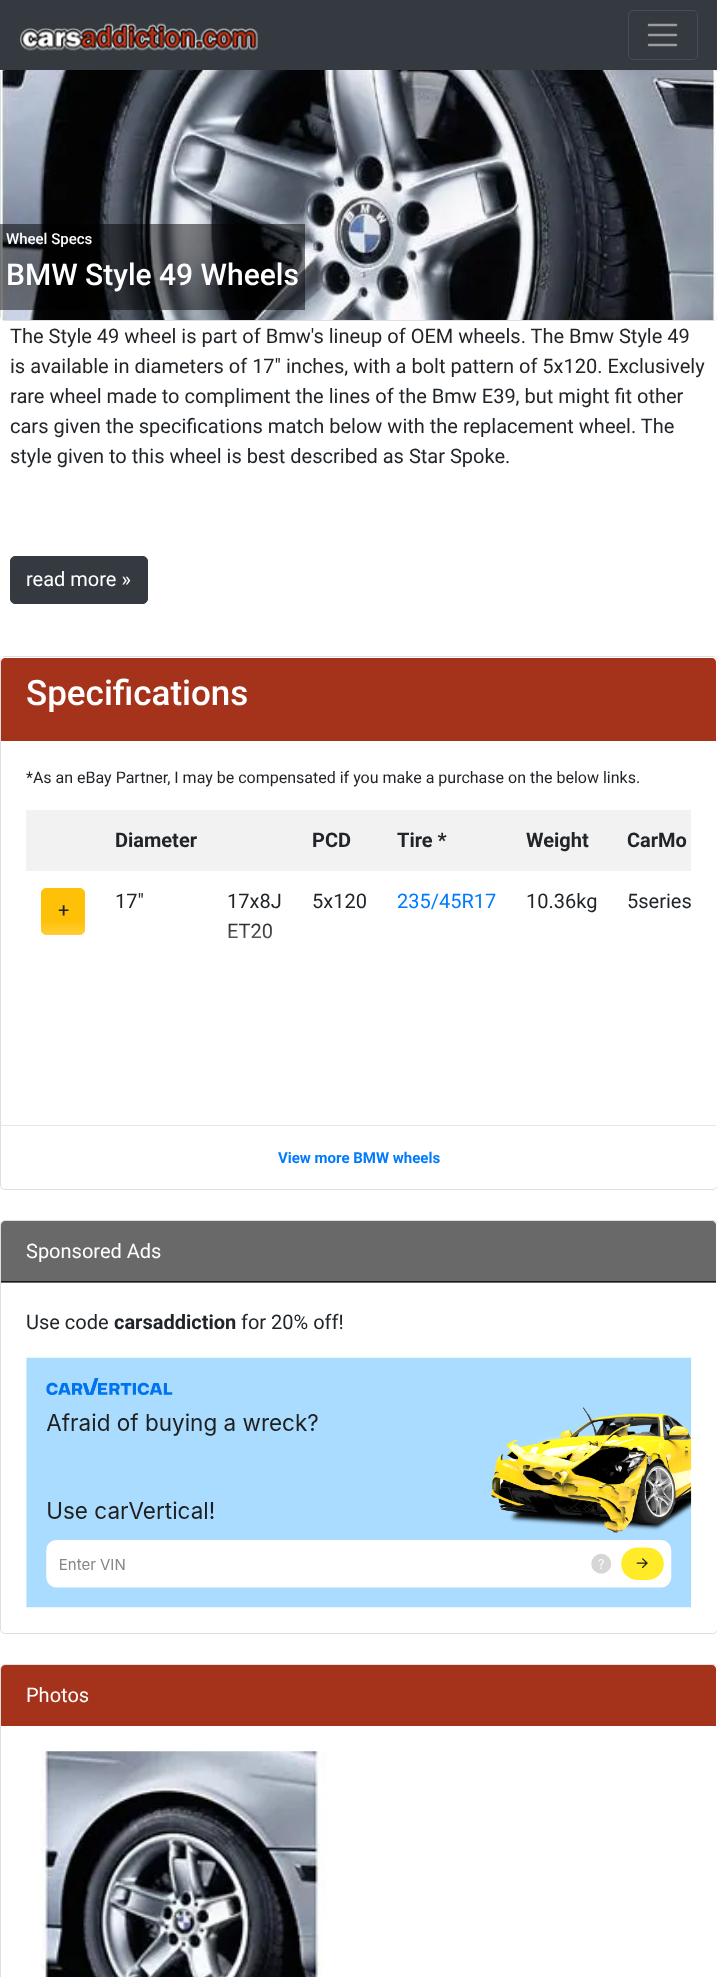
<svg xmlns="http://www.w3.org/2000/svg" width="717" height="1977">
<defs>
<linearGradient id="g1" gradientUnits="userSpaceOnUse" x1="359" y1="920" x2="359" y2="1000"><stop offset="0" stop-color="#fff" stop-opacity="0"/><stop offset="1" stop-color="#fff"/></linearGradient>
</defs>
<rect width="100%" height="100%" fill="#fff"/>
<rect x="0.5" y="69.5" width="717" height="251" rx="4.5" fill="none" stroke="#dfdfdf"/>
<rect width="717" height="70" fill="#343a40"/>
<image x="20" y="23" width="238" height="28" href="media/1.png"/>
<rect x="628.5" y="10.5" width="69" height="49" rx="4.5" fill="none" stroke="#484e53"/>
<path d="M649 25h27m-27 10h27m-27 10h27" fill="none" stroke="#9a9da0" stroke-width="2.5" stroke-linecap="round"/>
<image x="1" y="70" width="715" height="250" href="media/2.png"/>
<rect y="224" width="305" height="86" fill="#00000080"/>
<text x="6" y="244" style="font-family:Roboto;font-size:15px;font-weight:500;fill:#fff">Wheel Specs</text>
<text x="6" y="285" style="font-family:Roboto;font-size:30px;font-weight:500;fill:#fff">BMW Style 49 Wheels</text>
<text x="10" y="343" style="font-family:Roboto;font-size:20px;fill:#212529">The Style 49 wheel is part of Bmw's lineup of OEM wheels. The Bmw Style 49</text>
<text x="10" y="373" style="font-family:Roboto;font-size:20px;fill:#212529">is available in diameters of 17" inches, with a bolt pattern of 5x120. Exclusively</text>
<text x="10" y="403" style="font-family:Roboto;font-size:20px;fill:#212529">rare wheel made to compliment the lines of the Bmw E39, but might fit other</text>
<text x="10" y="433" style="font-family:Roboto;font-size:20px;fill:#212529">cars given the specifications match below with the replacement wheel. The</text>
<text x="10" y="463" style="font-family:Roboto;font-size:20px;fill:#212529">style given to this wheel is best described as Star Spoke.</text>
<rect x="10.5" y="556.5" width="137" height="47" rx="4.5" fill="#343a40" stroke="#343a40"/>
<text x="26" y="586" style="font-family:Roboto;font-size:20px;fill:#fff">read more »</text>
<rect x="0.5" y="656.5" width="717" height="533" rx="4.5" fill="none" stroke="#dfdfdf"/>
<path d="M5 658h707c2 0 4 2 4 4v79h-715v-79c0-2 2-4 4-4z" fill="#a5331b"/>
<text x="26" y="705" style="font-family:Roboto;font-size:35px;font-weight:500;fill:#fff">Specifications</text>
<text x="26" y="783" style="font-family:Roboto;font-size:16px;fill:#212529">*As an eBay Partner, I may be compensated if you make a purchase on the below links.</text>
<rect x="26" y="810" width="665" height="61" fill="#f2f2f2"/>
<text x="115" y="847" style="font-family:Roboto;font-size:20px;font-weight:bold;fill:#212529">Diameter</text>
<text x="312" y="847" style="font-family:Roboto;font-size:20px;font-weight:bold;fill:#212529">PCD</text>
<text x="397" y="847" style="font-family:Roboto;font-size:20px;font-weight:bold;fill:#212529">Tire *</text>
<text x="526" y="847" style="font-family:Roboto;font-size:20px;font-weight:bold;fill:#212529">Weight</text>
<text x="627" y="847" style="font-family:Roboto;font-size:20px;font-weight:bold;fill:#212529">CarMo</text>
<text x="115" y="908" style="font-family:Roboto;font-size:20px;fill:#212529">17"</text>
<text x="227" y="908" style="font-family:Roboto;font-size:20px;fill:#212529">17x8J</text>
<text x="227" y="938" style="font-family:Roboto;font-size:20px;fill:#212529">ET20</text>
<text x="312" y="908" style="font-family:Roboto;font-size:20px;fill:#212529">5x120</text>
<text x="397" y="908" style="font-family:Roboto;font-size:20px;fill:#007bff">235/45R17</text>
<text x="526" y="908" style="font-family:Roboto;font-size:20px;fill:#212529">10.36kg</text>
<text x="627" y="908" style="font-family:Roboto;font-size:20px;fill:#212529">5series</text>
<rect x="41.5" y="888.5" width="43" height="46" rx="4.5" fill="#ffc107" stroke="#ffc107"/>
<text x="58" y="917" style="font-family:Roboto;font-size:20px;fill:#212529">+</text>
<rect x="41" y="922" width="231" height="17" fill="url(#g1)"/>
<rect x="1" y="1125" width="715" height="1" fill="#e6e6e6"/>
<text x="278" y="1163" style="font-family:Roboto;font-size:15px;font-weight:bold;fill:#007bff">View more BMW wheels</text>
<rect x="0.5" y="1220.5" width="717" height="413" rx="4.5" fill="none" stroke="#dfdfdf"/>
<path d="M5 1221h707c2 0 4 2 4 4v58h-715v-58c0-2 2-4 4-4z" fill="#696969"/>
<rect x="1" y="1281" width="715" height="1" fill="#191919"/>
<text x="26" y="1258" style="font-family:Roboto;font-size:20px;fill:#fff">Sponsored Ads</text>
<text x="26" y="1329" style="font-family:Roboto;font-size:20px;fill:#212529">Use code</text>
<text x="114" y="1329" style="font-family:Roboto;font-size:20px;font-weight:bold;fill:#212529">carsaddiction</text>
<text x="241" y="1329" style="font-family:Roboto;font-size:20px;fill:#212529">for 20% off!</text>
<image x="26" y="1357" width="666" height="251" href="media/3.png"/>
<rect x="0.5" y="1664.5" width="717" height="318" rx="4.5" fill="none" stroke="#dfdfdf"/>
<path d="M5 1665h707c2 0 4 2 4 4v57h-715v-57c0-2 2-4 4-4z" fill="#a5331b"/>
<text x="26" y="1702" style="font-family:Roboto;font-size:20px;fill:#fff">Photos</text>
<image x="40" y="1751" width="287" height="226" href="media/4.png"/>
</svg>
